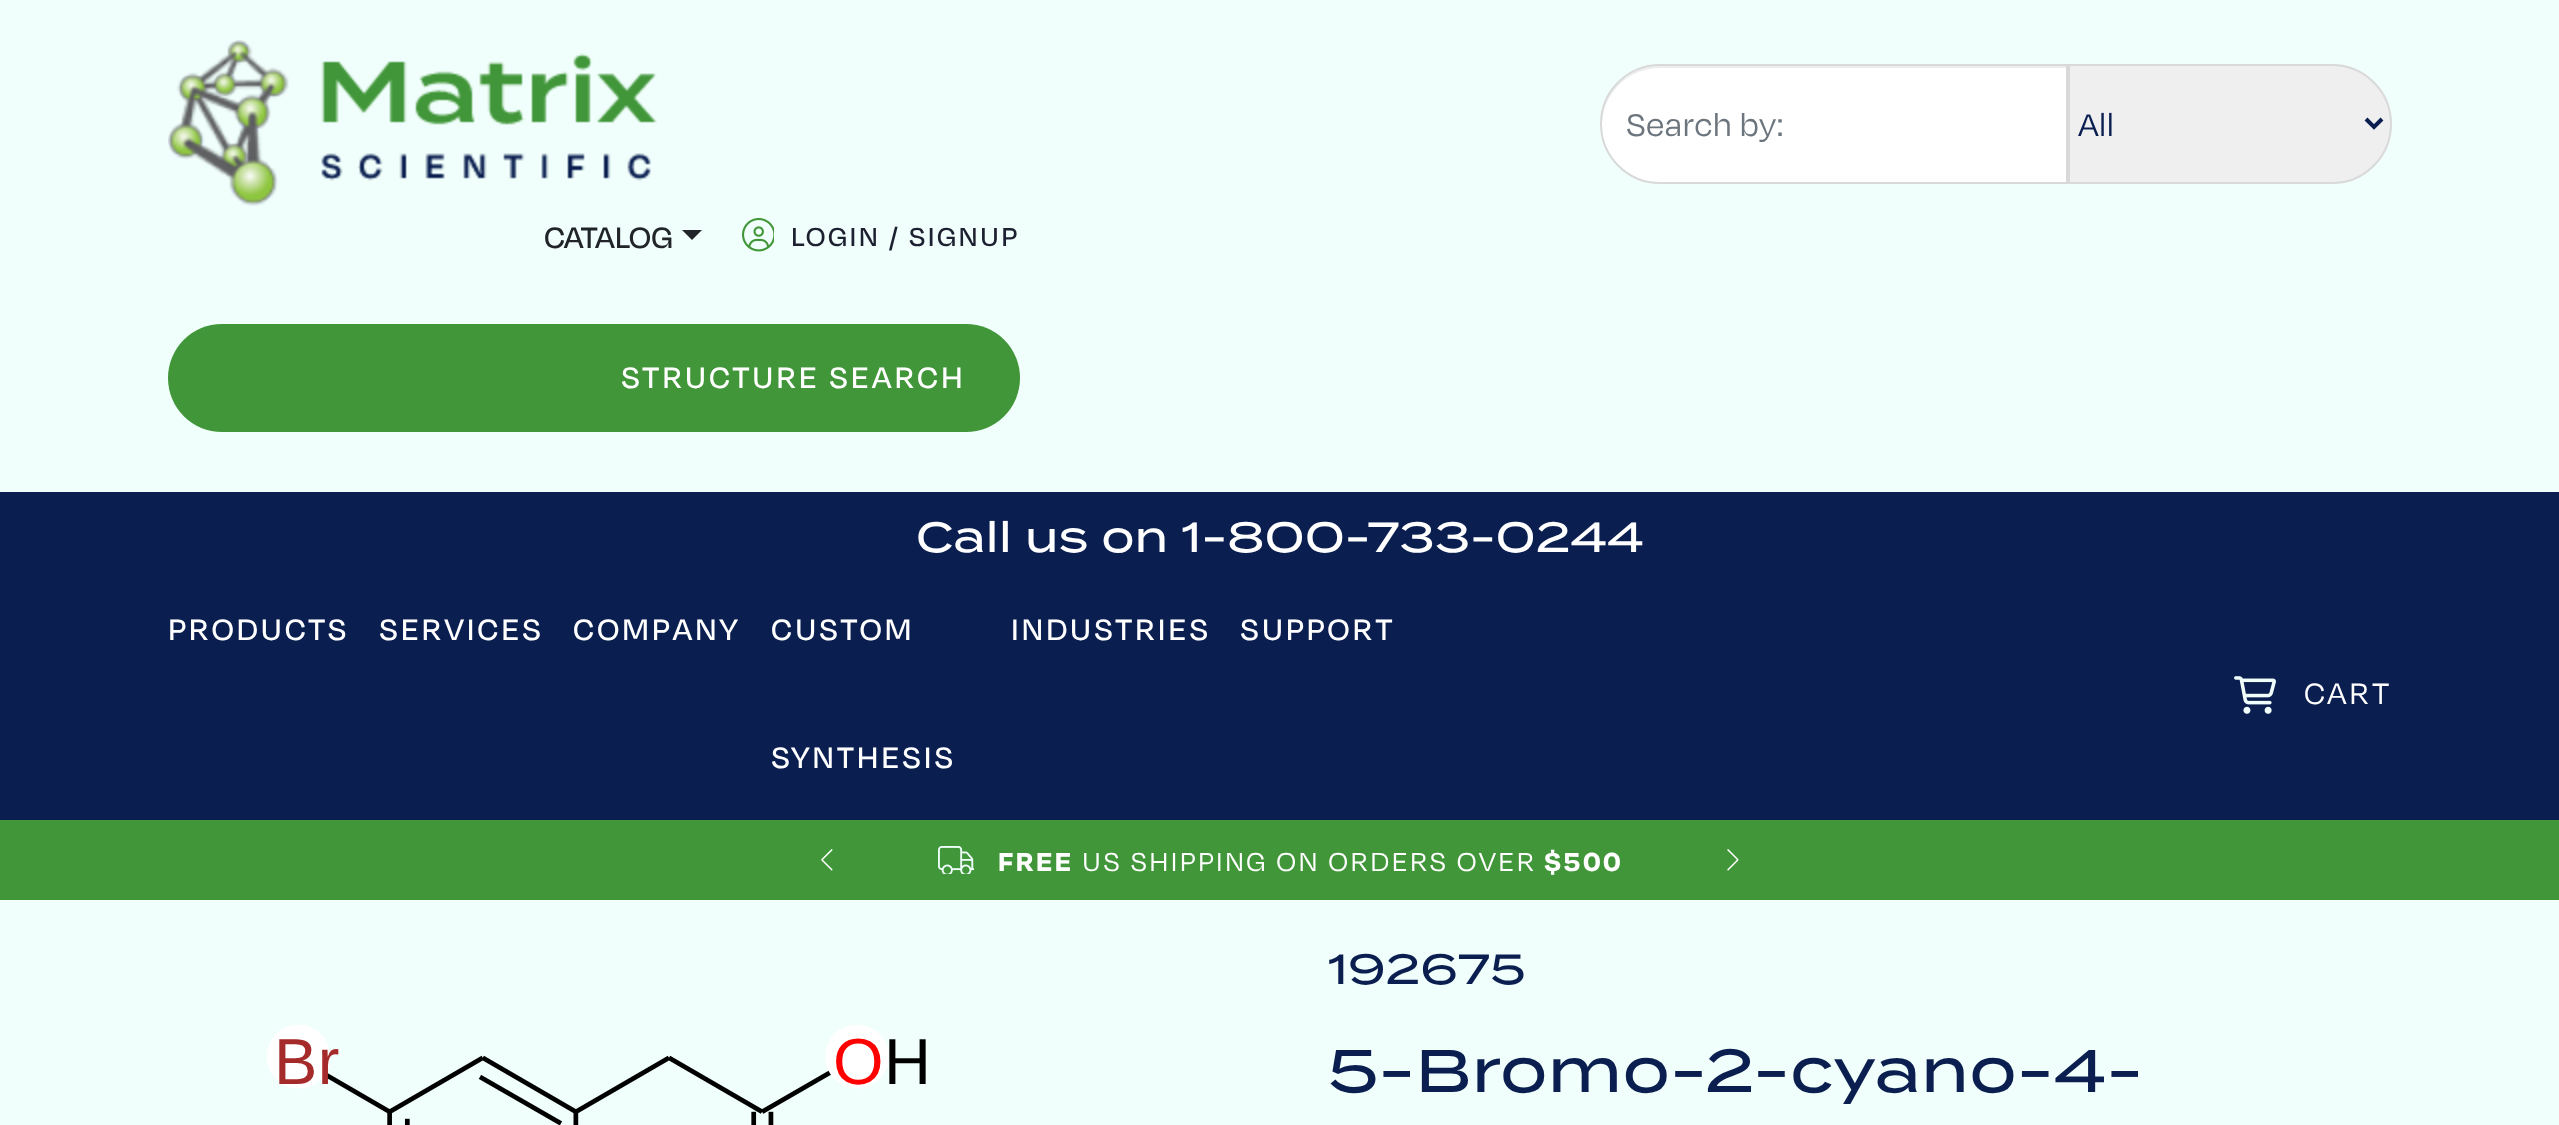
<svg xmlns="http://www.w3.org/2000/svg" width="2559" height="1125">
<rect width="100%" height="100%" fill="#f0fffb"/>
<image x="168" y="40" width="489" height="166" href="media/1.png"/>
<path d="M1660 66h406v116h-406c-32 0-58-26-58-58c0-32 26-58 58-58z" fill="#fff"/>
<path d="M1660 68h406v-2h-406c-32 0-58 26-58 58v1c1-32 26-57 58-57z" fill="#00000012"/>
<path d="M1660 65h407v118h-407c-32.5 0-59-26.5-59-59c0-32.5 26.5-59 59-59z" fill="none" stroke="#d9d9d9" stroke-width="2"/>
<text x="1626" y="136" style="font-family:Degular;font-size:36px;letter-spacing:0.25px;fill:#6c757d">Search by:</text>
<path d="M2069 65h263c32.5 0 59 26.5 59 59c0 32.5-26.5 59-59 59h-263z" fill="#efefef" stroke="#d9d9d9" stroke-width="2"/>
<path d="M2366 119l8 8l8-8" fill="none" stroke="#0a1e50" stroke-width="4"/>
<text x="2078" y="136" style="font-family:Degular;font-size:36px;fill:#0a1e50">All</text>
<text x="544" y="248" style="font-family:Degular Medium;font-size:34px;font-weight:500;fill:#212529">CATALOG</text>
<path d="M682 230h20l-10 10z" fill="#212529"/>
<image x="742" y="218" width="32" height="34" href="media/2.png"/>
<text x="791" y="246" style="font-family:Degular Medium;font-size:30px;font-weight:500;letter-spacing:2.4px;fill:#1d2031">LOGIN / SIGNUP</text>
<rect x="168" y="324" width="852" height="108" rx="54" fill="#419639"/>
<text x="621" y="388" style="font-family:Degular Medium;font-size:34px;font-weight:500;letter-spacing:2.75px;fill:#fff">STRUCTURE SEARCH</text>
<rect y="492" width="2559" height="328" fill="#0a1e50"/>
<text x="916" y="552" style="font-family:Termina;font-size:42px;font-weight:500;letter-spacing:0.4px;fill:#fff">Call us on 1-800-733-0244</text>
<text x="168" y="640" style="font-family:Degular Medium;font-size:34px;font-weight:500;letter-spacing:2.75px;fill:#fff">PRODUCTS</text>
<text x="379" y="640" style="font-family:Degular Medium;font-size:34px;font-weight:500;letter-spacing:2.75px;fill:#fff">SERVICES</text>
<text x="573" y="640" style="font-family:Degular Medium;font-size:34px;font-weight:500;letter-spacing:2.75px;fill:#fff">COMPANY</text>
<text x="771" y="640" style="font-family:Degular Medium;font-size:34px;font-weight:500;letter-spacing:2.75px;fill:#fff">CUSTOM</text>
<text x="771" y="768" style="font-family:Degular Medium;font-size:34px;font-weight:500;letter-spacing:2.75px;fill:#fff">SYNTHESIS</text>
<text x="1011" y="640" style="font-family:Degular Medium;font-size:34px;font-weight:500;letter-spacing:2.75px;fill:#fff">INDUSTRIES</text>
<text x="1240" y="640" style="font-family:Degular Medium;font-size:34px;font-weight:500;letter-spacing:2.75px;fill:#fff">SUPPORT</text>
<image x="2234" y="676" width="42" height="38" href="media/3.png"/>
<text x="2304" y="704" style="font-family:Degular;font-size:34px;letter-spacing:2.75px;fill:#fff">CART</text>
<rect y="820" width="2559" height="80" fill="#419639"/>
<image x="821" y="849" width="12" height="22" href="media/4.png"/>
<image x="938" y="846" width="36" height="28" href="media/5.png"/>
<text x="998" y="871" style="font-family:Degular;font-size:30px;font-weight:bold;letter-spacing:2.4px;fill:#fff">FREE</text>
<text x="1082" y="871" style="font-family:Degular;font-size:30px;letter-spacing:2.4px;fill:#fff">US SHIPPING ON ORDERS OVER</text>
<text x="1544" y="871" style="font-family:Degular;font-size:30px;font-weight:bold;letter-spacing:2.4px;fill:#fff">$500</text>
<image x="1727" y="849" width="12" height="22" href="media/6.png"/>
<image x="266" y="1024" width="623" height="101" href="media/7.png"/>
<text x="274" y="1084" style="font-family:Liberation Sans;font-size:65px;letter-spacing:0.4px;fill:#a52a2a">Br</text>
<text x="833" y="1084" style="font-family:Liberation Sans;font-size:65px;letter-spacing:0.4px;fill:#f00">O</text>
<text x="884" y="1084" style="font-family:Liberation Sans;font-size:65px;letter-spacing:0.4px;fill:#000">H</text>
<text x="1328" y="984" style="font-family:Termina;font-size:42px;font-weight:500;letter-spacing:0.4px;fill:#0a1e50">192675</text>
<text x="1328" y="1092" style="font-family:Termina;font-size:60px;font-weight:500;letter-spacing:0.75px;fill:#0a1e50">5-Bromo-2-cyano-4-</text>
</svg>
